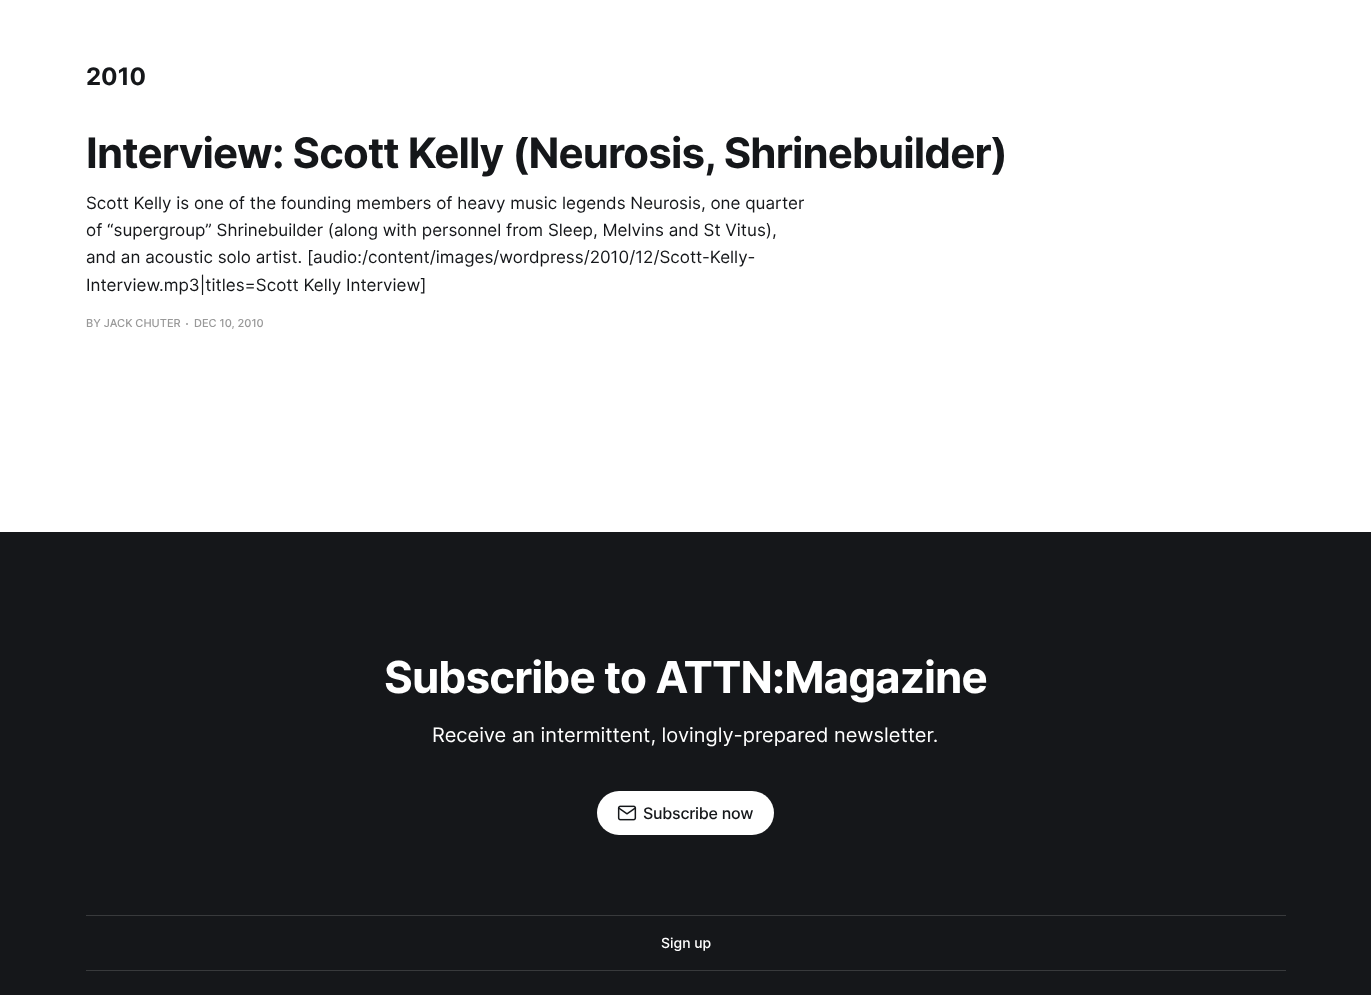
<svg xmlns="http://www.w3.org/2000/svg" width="1371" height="995">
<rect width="100%" height="100%" fill="#fff"/>
<text x="86" y="85" style="font-family:Inter;font-size:24px;font-weight:bold;fill:#15171a">2010</text>
<text x="86" y="168" style="font-family:Inter;font-size:42px;font-weight:bold;letter-spacing:-0.85px;fill:#15171a">Interview: Scott Kelly (Neurosis, Shrinebuilder)</text>
<text x="86" y="209" style="font-family:Inter;font-size:17px;fill:#15171a">Scott Kelly is one of the founding members of heavy music legends Neurosis, one quarter</text>
<text x="86" y="236" style="font-family:Inter;font-size:17px;fill:#15171a">of “supergroup” Shrinebuilder (along with personnel from Sleep, Melvins and St Vitus),</text>
<text x="86" y="263" style="font-family:Inter;font-size:17px;fill:#15171a">and an acoustic solo artist. [audio:/content/images/wordpress/2010/12/Scott-Kelly-</text>
<text x="86" y="291" style="font-family:Inter;font-size:17px;fill:#15171a">Interview.mp3|titles=Scott Kelly Interview]</text>
<text x="86" y="327" style="font-family:Inter;font-size:11px;font-weight:500;fill:#999">BY JACK CHUTER</text>
<circle cx="187" cy="324" r="1" fill="#999"/>
<text x="194" y="327" style="font-family:Inter;font-size:11px;font-weight:500;fill:#999">DEC 10, 2010</text>
<rect y="532" width="1371" height="463" fill="#15171a"/>
<text x="384" y="693" style="font-family:Inter;font-size:44px;font-weight:bold;letter-spacing:-0.9px;fill:#fff">Subscribe to ATTN:Magazine</text>
<text x="432" y="742" style="font-family:Inter;font-size:20px;fill:#fff">Receive an intermittent, lovingly-prepared newsletter.</text>
<rect x="597" y="791" width="177" height="44" rx="22" fill="#fff"/>
<image x="617" y="805" width="20" height="16" href="media/1.png"/>
<text x="643" y="819" style="font-family:Inter;font-size:16px;font-weight:500;letter-spacing:-0.25px;fill:#15171a">Subscribe now</text>
<rect x="86" y="915" width="1200" height="1" fill="#383a3c"/>
<rect x="86" y="970" width="1200" height="1" fill="#383a3c"/>
<text x="661" y="948" style="font-family:Inter;font-size:14px;font-weight:500;fill:#fff">Sign up</text>
</svg>
